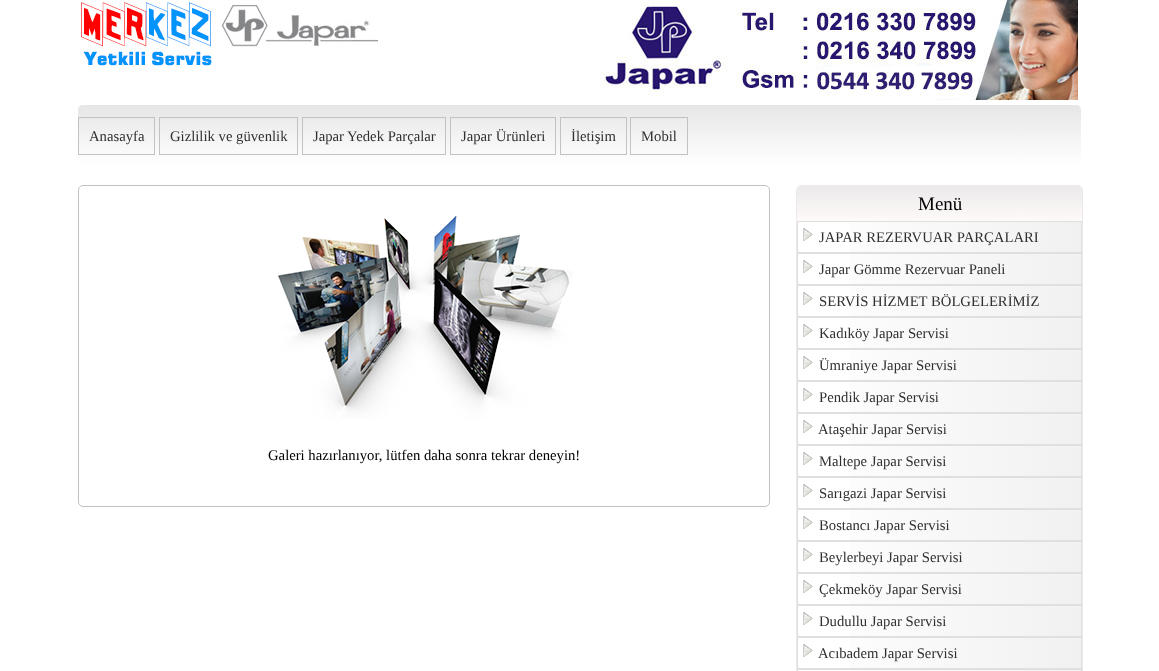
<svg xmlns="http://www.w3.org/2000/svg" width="1159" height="671">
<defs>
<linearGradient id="g1" gradientUnits="userSpaceOnUse" x1="580" y1="105" x2="580" y2="165"><stop offset="0" stop-color="#e6e6e6"/><stop offset="1" stop-color="#fff"/></linearGradient>
<linearGradient id="g2" gradientUnits="userSpaceOnUse" x1="940" y1="186" x2="940" y2="221"><stop offset="0" stop-color="#ebe9e9"/><stop offset="1" stop-color="#fefafa"/></linearGradient>
<linearGradient id="g3" gradientUnits="userSpaceOnUse" x1="798" y1="237" x2="1081" y2="237"><stop offset="0" stop-color="#fff"/><stop offset="1" stop-color="#f2f1f1"/></linearGradient>
<linearGradient id="g4" gradientUnits="userSpaceOnUse" x1="798" y1="269" x2="1081" y2="269"><stop offset="0" stop-color="#fff"/><stop offset="1" stop-color="#f2f1f1"/></linearGradient>
<linearGradient id="g5" gradientUnits="userSpaceOnUse" x1="798" y1="301" x2="1081" y2="301"><stop offset="0" stop-color="#fff"/><stop offset="1" stop-color="#f2f1f1"/></linearGradient>
<linearGradient id="g6" gradientUnits="userSpaceOnUse" x1="798" y1="333" x2="1081" y2="333"><stop offset="0" stop-color="#fff"/><stop offset="1" stop-color="#f2f1f1"/></linearGradient>
<linearGradient id="g7" gradientUnits="userSpaceOnUse" x1="798" y1="365" x2="1081" y2="365"><stop offset="0" stop-color="#fff"/><stop offset="1" stop-color="#f2f1f1"/></linearGradient>
<linearGradient id="g8" gradientUnits="userSpaceOnUse" x1="798" y1="397" x2="1081" y2="397"><stop offset="0" stop-color="#fff"/><stop offset="1" stop-color="#f2f1f1"/></linearGradient>
<linearGradient id="g9" gradientUnits="userSpaceOnUse" x1="798" y1="429" x2="1081" y2="429"><stop offset="0" stop-color="#fff"/><stop offset="1" stop-color="#f2f1f1"/></linearGradient>
<linearGradient id="g10" gradientUnits="userSpaceOnUse" x1="798" y1="461" x2="1081" y2="461"><stop offset="0" stop-color="#fff"/><stop offset="1" stop-color="#f2f1f1"/></linearGradient>
<linearGradient id="g11" gradientUnits="userSpaceOnUse" x1="798" y1="493" x2="1081" y2="493"><stop offset="0" stop-color="#fff"/><stop offset="1" stop-color="#f2f1f1"/></linearGradient>
<linearGradient id="g12" gradientUnits="userSpaceOnUse" x1="798" y1="525" x2="1081" y2="525"><stop offset="0" stop-color="#fff"/><stop offset="1" stop-color="#f2f1f1"/></linearGradient>
<linearGradient id="g13" gradientUnits="userSpaceOnUse" x1="798" y1="557" x2="1081" y2="557"><stop offset="0" stop-color="#fff"/><stop offset="1" stop-color="#f2f1f1"/></linearGradient>
<linearGradient id="g14" gradientUnits="userSpaceOnUse" x1="798" y1="589" x2="1081" y2="589"><stop offset="0" stop-color="#fff"/><stop offset="1" stop-color="#f2f1f1"/></linearGradient>
<linearGradient id="g15" gradientUnits="userSpaceOnUse" x1="798" y1="621" x2="1081" y2="621"><stop offset="0" stop-color="#fff"/><stop offset="1" stop-color="#f2f1f1"/></linearGradient>
<linearGradient id="g16" gradientUnits="userSpaceOnUse" x1="798" y1="653" x2="1081" y2="653"><stop offset="0" stop-color="#fff"/><stop offset="1" stop-color="#f2f1f1"/></linearGradient>
<linearGradient id="g17" gradientUnits="userSpaceOnUse" x1="798" y1="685" x2="1081" y2="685"><stop offset="0" stop-color="#fff"/><stop offset="1" stop-color="#f2f1f1"/></linearGradient>
</defs>
<rect width="100%" height="100%" fill="#fff"/>
<image x="80" y="0" width="298" height="71" href="media/1.png"/>
<image x="600" y="0" width="478" height="100" href="media/2.png"/>
<path d="M83 105h993c3 0 5 2 5 5v55h-1003v-55c0-3 2-5 5-5z" fill="url(#g1)"/>
<rect x="78.5" y="117.5" width="76" height="37" fill="none" stroke="#c2c2c2"/>
<text x="89" y="141" style="font-family:Liberation Serif;font-size:14.7px;fill:#303030">Anasayfa</text>
<rect x="159.5" y="117.5" width="138" height="37" fill="none" stroke="#c2c2c2"/>
<text x="170" y="141" style="font-family:Liberation Serif;font-size:14.7px;fill:#303030">Gizlilik ve güvenlik</text>
<rect x="302.5" y="117.5" width="143" height="37" fill="none" stroke="#c2c2c2"/>
<text x="313" y="141" style="font-family:Liberation Serif;font-size:14.7px;fill:#303030">Japar Yedek Parçalar</text>
<rect x="450.5" y="117.5" width="105" height="37" fill="none" stroke="#c2c2c2"/>
<text x="461" y="141" style="font-family:Liberation Serif;font-size:14.7px;fill:#303030">Japar Ürünleri</text>
<rect x="560.5" y="117.5" width="66" height="37" fill="none" stroke="#c2c2c2"/>
<text x="571" y="141" style="font-family:Liberation Serif;font-size:14.7px;fill:#303030">İletişim</text>
<rect x="630.5" y="117.5" width="57" height="37" fill="none" stroke="#c2c2c2"/>
<text x="641" y="141" style="font-family:Liberation Serif;font-size:14.7px;fill:#303030">Mobil</text>
<rect x="78.5" y="185.5" width="691" height="321" rx="4.5" fill="none" stroke="#c2c2c2"/>
<image x="278" y="215" width="295" height="204" href="media/3.png"/>
<text x="268" y="460" style="font-family:Liberation Serif;font-size:14.7px;fill:#000">Galeri hazırlanıyor, lütfen daha sonra tekrar deneyin!</text>
<rect x="796.5" y="185.5" width="286" height="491" rx="4.5" fill="none" stroke="#ebe9e9"/>
<path d="M802 186h275c3 0 5 2 5 5v30h-285v-30c0-3 2-5 5-5z" fill="url(#g2)"/>
<text x="918" y="210" style="font-family:Liberation Serif;font-size:19px;fill:#000">Menü</text>
<rect x="849" y="222" width="232" height="30" fill="url(#g3)"/>
<rect x="797.5" y="221.5" width="284" height="31" fill="none" stroke="#e0dfdf"/>
<image x="803" y="228" width="10" height="13" href="media/4.png"/>
<text x="819" y="242" style="font-family:Liberation Serif;font-size:14.7px;fill:#303030">JAPAR REZERVUAR PARÇALARI</text>
<rect x="849" y="254" width="232" height="30" fill="url(#g4)"/>
<rect x="797.5" y="253.5" width="284" height="31" fill="none" stroke="#e0dfdf"/>
<image x="803" y="260" width="10" height="13" href="media/4.png"/>
<text x="819" y="274" style="font-family:Liberation Serif;font-size:14.7px;fill:#303030">Japar Gömme Rezervuar Paneli</text>
<rect x="849" y="286" width="232" height="30" fill="url(#g5)"/>
<rect x="797.5" y="285.5" width="284" height="31" fill="none" stroke="#e0dfdf"/>
<image x="803" y="292" width="10" height="13" href="media/4.png"/>
<text x="819" y="306" style="font-family:Liberation Serif;font-size:14.7px;fill:#303030">SERVİS HİZMET BÖLGELERİMİZ</text>
<rect x="849" y="318" width="232" height="30" fill="url(#g6)"/>
<rect x="797.5" y="317.5" width="284" height="31" fill="none" stroke="#e0dfdf"/>
<image x="803" y="324" width="10" height="13" href="media/4.png"/>
<text x="819" y="338" style="font-family:Liberation Serif;font-size:14.7px;fill:#303030">Kadıköy Japar Servisi</text>
<rect x="849" y="350" width="232" height="30" fill="url(#g7)"/>
<rect x="797.5" y="349.5" width="284" height="31" fill="none" stroke="#e0dfdf"/>
<image x="803" y="356" width="10" height="13" href="media/4.png"/>
<text x="819" y="370" style="font-family:Liberation Serif;font-size:14.7px;fill:#303030">Ümraniye Japar Servisi</text>
<rect x="849" y="382" width="232" height="30" fill="url(#g8)"/>
<rect x="797.5" y="381.5" width="284" height="31" fill="none" stroke="#e0dfdf"/>
<image x="803" y="388" width="10" height="13" href="media/4.png"/>
<text x="819" y="402" style="font-family:Liberation Serif;font-size:14.7px;fill:#303030">Pendik Japar Servisi</text>
<rect x="849" y="414" width="232" height="30" fill="url(#g9)"/>
<rect x="797.5" y="413.5" width="284" height="31" fill="none" stroke="#e0dfdf"/>
<image x="803" y="420" width="10" height="13" href="media/4.png"/>
<text x="818" y="434" style="font-family:Liberation Serif;font-size:14.7px;fill:#303030">Ataşehir Japar Servisi</text>
<rect x="849" y="446" width="232" height="30" fill="url(#g10)"/>
<rect x="797.5" y="445.5" width="284" height="31" fill="none" stroke="#e0dfdf"/>
<image x="803" y="452" width="10" height="13" href="media/4.png"/>
<text x="819" y="466" style="font-family:Liberation Serif;font-size:14.7px;fill:#303030">Maltepe Japar Servisi</text>
<rect x="849" y="478" width="232" height="30" fill="url(#g11)"/>
<rect x="797.5" y="477.5" width="284" height="31" fill="none" stroke="#e0dfdf"/>
<image x="803" y="484" width="10" height="13" href="media/4.png"/>
<text x="819" y="498" style="font-family:Liberation Serif;font-size:14.7px;fill:#303030">Sarıgazi Japar Servisi</text>
<rect x="849" y="510" width="232" height="30" fill="url(#g12)"/>
<rect x="797.5" y="509.5" width="284" height="31" fill="none" stroke="#e0dfdf"/>
<image x="803" y="516" width="10" height="13" href="media/4.png"/>
<text x="819" y="530" style="font-family:Liberation Serif;font-size:14.7px;fill:#303030">Bostancı Japar Servisi</text>
<rect x="849" y="542" width="232" height="30" fill="url(#g13)"/>
<rect x="797.5" y="541.5" width="284" height="31" fill="none" stroke="#e0dfdf"/>
<image x="803" y="548" width="10" height="13" href="media/4.png"/>
<text x="819" y="562" style="font-family:Liberation Serif;font-size:14.7px;fill:#303030">Beylerbeyi Japar Servisi</text>
<rect x="849" y="574" width="232" height="30" fill="url(#g14)"/>
<rect x="797.5" y="573.5" width="284" height="31" fill="none" stroke="#e0dfdf"/>
<image x="803" y="580" width="10" height="13" href="media/4.png"/>
<text x="819" y="594" style="font-family:Liberation Serif;font-size:14.7px;fill:#303030">Çekmeköy Japar Servisi</text>
<rect x="849" y="606" width="232" height="30" fill="url(#g15)"/>
<rect x="797.5" y="605.5" width="284" height="31" fill="none" stroke="#e0dfdf"/>
<image x="803" y="612" width="10" height="13" href="media/4.png"/>
<text x="819" y="626" style="font-family:Liberation Serif;font-size:14.7px;fill:#303030">Dudullu Japar Servisi</text>
<rect x="849" y="638" width="232" height="30" fill="url(#g16)"/>
<rect x="797.5" y="637.5" width="284" height="31" fill="none" stroke="#e0dfdf"/>
<image x="803" y="644" width="10" height="13" href="media/4.png"/>
<text x="818" y="658" style="font-family:Liberation Serif;font-size:14.7px;fill:#303030">Acıbadem Japar Servisi</text>
<rect x="849" y="670" width="232" height="1" fill="url(#g17)"/>
<rect x="797.5" y="669.5" width="284" height="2" fill="none" stroke="#e0dfdf"/>
</svg>
